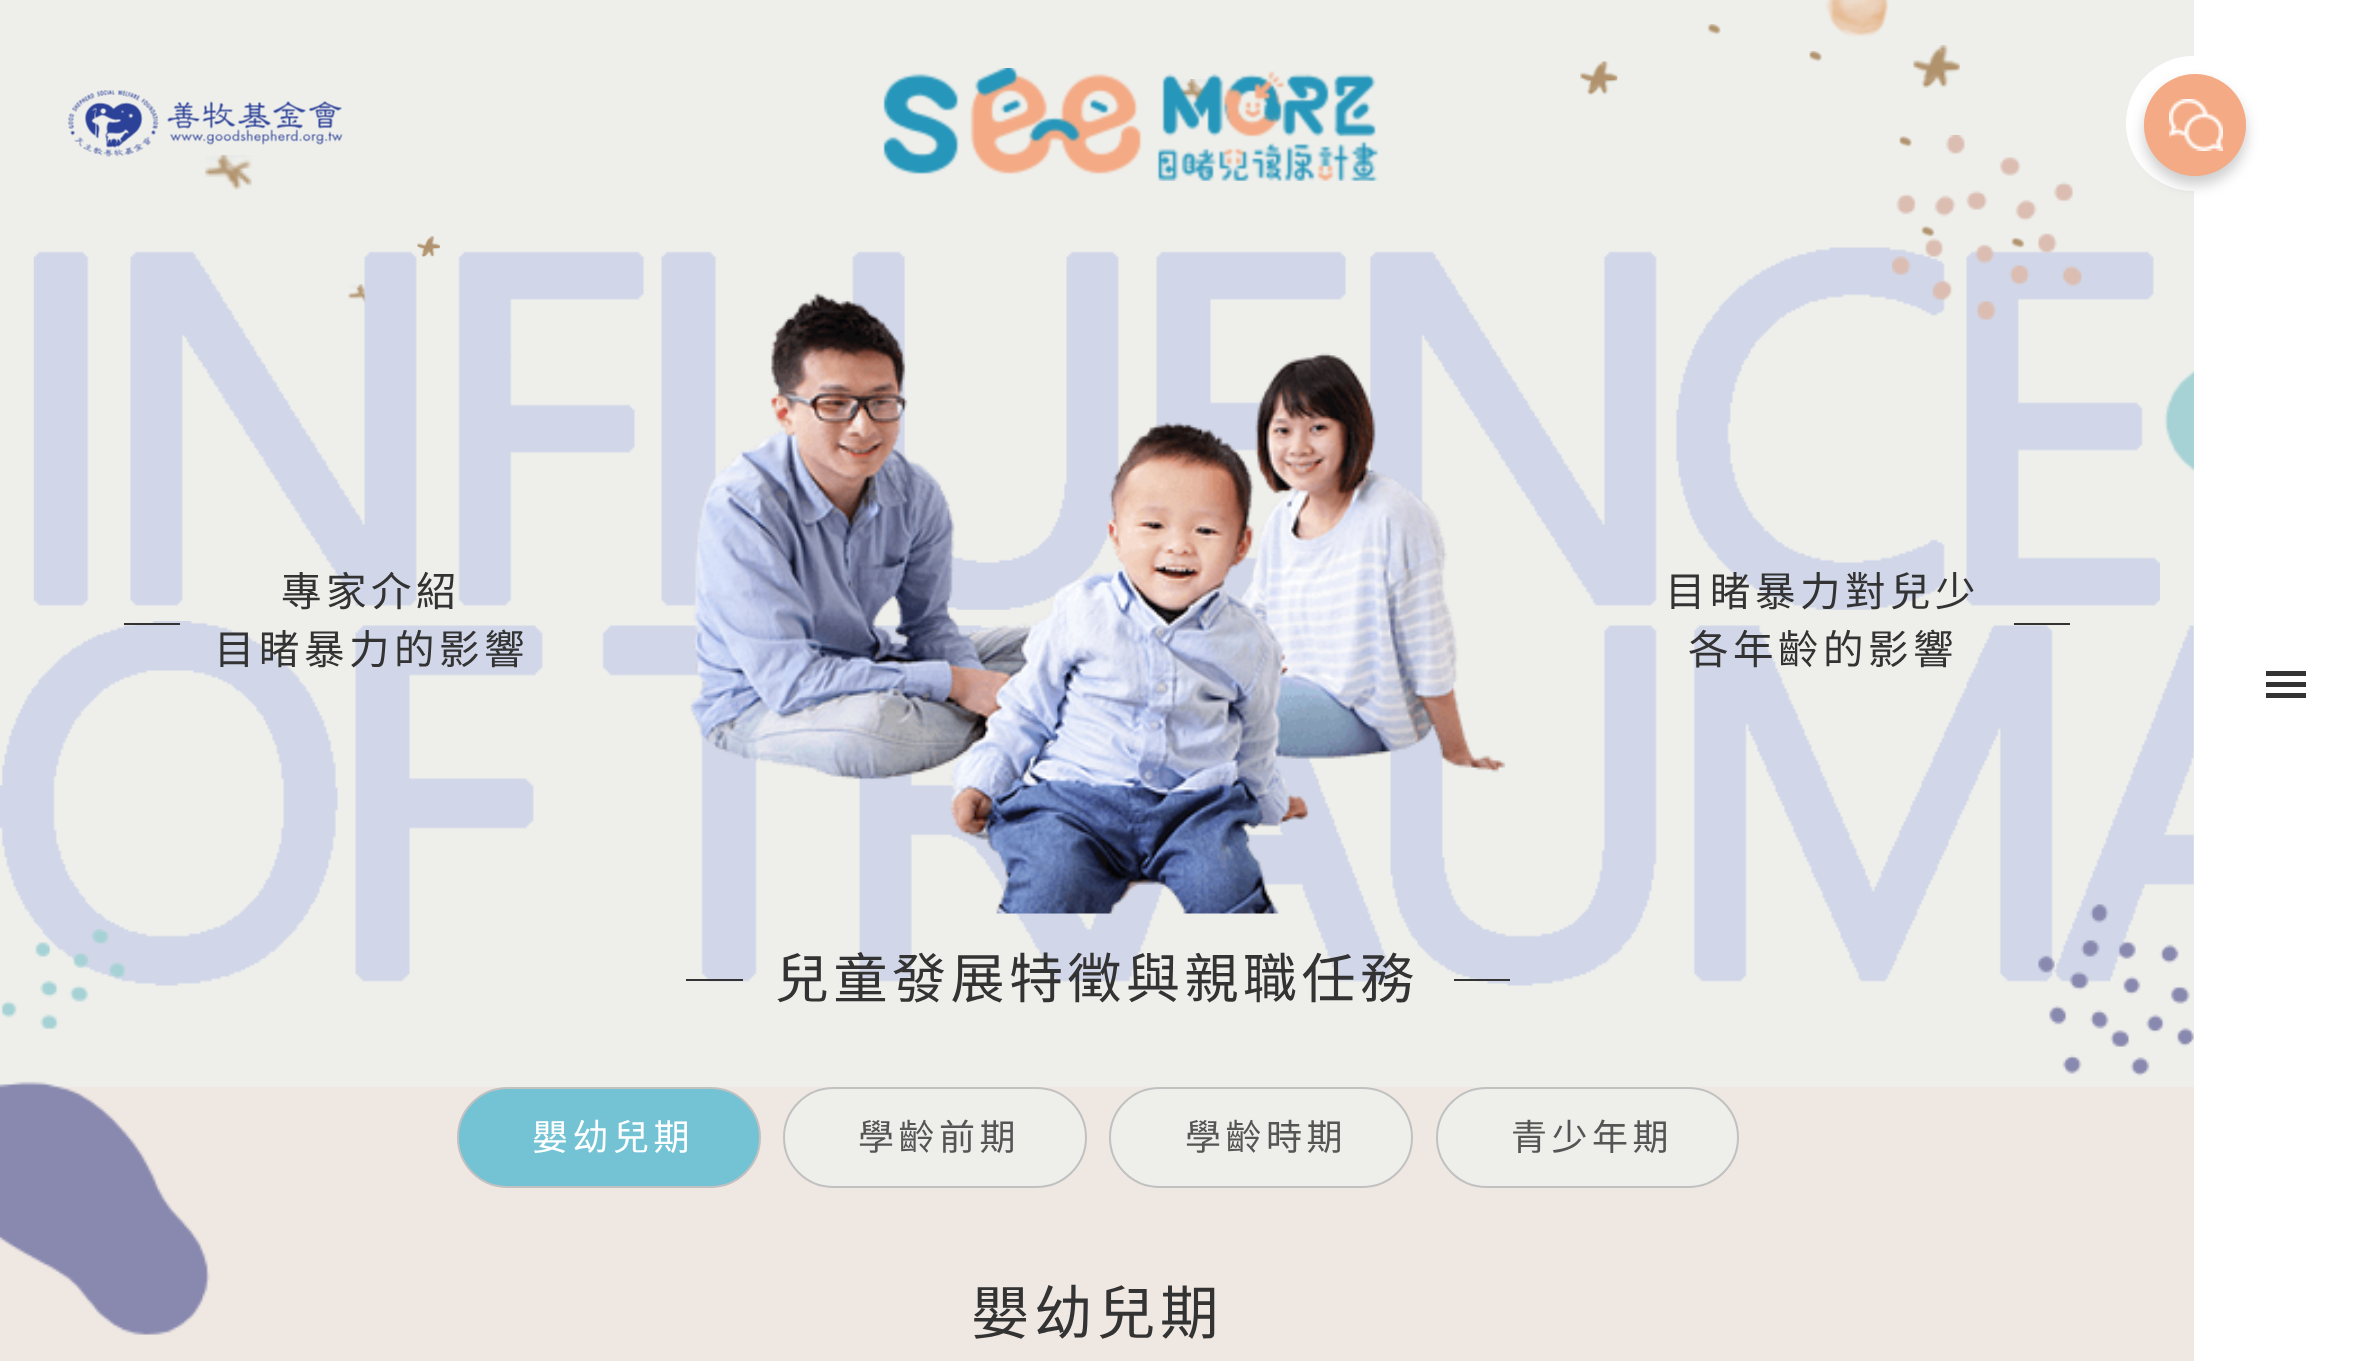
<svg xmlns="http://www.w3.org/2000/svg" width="2372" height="1361">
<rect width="100%" height="100%" fill="#fff"/>
<rect width="2194" height="1087" fill="#eeefeb"/>
<image x="205" y="155" width="47" height="35" href="media/11.png"/>
<image x="68" y="90" width="275" height="67" href="media/1.png"/>
<image x="1177" y="79" width="35" height="29" href="media/8.png"/>
<image x="883" y="68" width="495" height="113" href="media/2.png"/>
<circle cx="2193.5" cy="123.5" r="67.5" fill="#fff"/>
<rect x="2144" y="83" width="102" height="102" rx="51" fill="#00000033" filter="blur(7px)"/>
<circle cx="2195" cy="125" r="51" fill="#f4aa85"/>
<circle cx="2195" cy="125" r="51" fill="#f4aa8540"/>
<image x="2169" y="99" width="54" height="52" href="media/3.png"/>
<rect x="2266" y="671" width="40" height="5" fill="#333"/>
<rect x="2266" y="682" width="40" height="5" fill="#333"/>
<rect x="2266" y="693" width="40" height="5" fill="#333"/>
<image x="1707" y="24" width="14" height="11" href="media/4.png"/>
<image x="1825" y="0" width="64" height="37" href="media/5.png"/>
<image x="1809" y="51" width="13" height="11" href="media/6.png"/>
<image x="1913" y="45" width="47" height="43" href="media/7.png"/>
<image x="1580" y="61" width="38" height="34" href="media/9.png"/>
<image x="1899" y="136" width="13" height="11" href="media/10.png"/>
<image x="1921" y="226" width="14" height="11" href="media/12.png"/>
<image x="417" y="236" width="23" height="21" href="media/13.png"/>
<image x="2011" y="238" width="14" height="10" href="media/14.png"/>
<image x="348" y="284" width="18" height="21" href="media/15.png"/>
<image x="510" y="344" width="1" height="15" href="media/16.png"/>
<image x="33" y="247" width="2127" height="363" href="media/18.png"/>
<image x="1892" y="135" width="190" height="185" href="media/17.png"/>
<image x="0" y="621" width="2194" height="365" href="media/19.png"/>
<image x="690" y="292" width="816" height="622" href="media/20.png"/>
<image x="2164" y="370" width="30" height="101" href="media/21.png"/>
<rect x="124" y="623" width="56" height="2" fill="#333"/>
<text x="281" y="606" style="font-family:Noto Sans CJK SC;font-size:40.5px;letter-spacing:4.5px;fill:#333">專家介紹</text>
<text x="214" y="664" style="font-family:Noto Sans CJK SC;font-size:40.5px;letter-spacing:4.5px;fill:#333">目睹暴力的影響</text>
<text x="1665" y="606" style="font-family:Noto Sans CJK SC;font-size:40.5px;letter-spacing:4.5px;fill:#333">目睹暴力對兒少</text>
<text x="1688" y="664" style="font-family:Noto Sans CJK SC;font-size:40.5px;letter-spacing:4.5px;fill:#333">各年齡的影響</text>
<rect x="2014" y="623" width="56" height="2" fill="#333"/>
<image x="1" y="929" width="125" height="101" href="media/22.png"/>
<rect x="686" y="979" width="57" height="2" fill="#333"/>
<text x="775" y="998" style="font-family:Noto Sans CJK SC;font-size:54px;letter-spacing:4.5px;fill:#333">兒童發展特徵與親職任務</text>
<rect x="1454" y="979" width="56" height="2" fill="#333"/>
<image x="2038" y="904" width="156" height="172" href="media/23.png"/>
<rect y="1087" width="2194" height="274" fill="#eee7e2"/>
<image x="0" y="1081" width="210" height="254" href="media/24.png"/>
<rect x="458" y="1088" width="302" height="99" rx="49.5" fill="#73c3d4" stroke="#c1c1c1" stroke-width="2"/>
<text x="532" y="1150" style="font-family:Noto Sans CJK SC;font-size:36px;letter-spacing:4.5px;fill:#fff">嬰幼兒期</text>
<rect x="784" y="1088" width="302" height="99" rx="49.5" fill="#eeefeb" stroke="#c1c1c1" stroke-width="2"/>
<text x="858" y="1150" style="font-family:Noto Sans CJK SC;font-size:36px;letter-spacing:4.5px;fill:#555">學齡前期</text>
<rect x="1110" y="1088" width="302" height="99" rx="49.5" fill="#eeefeb" stroke="#c1c1c1" stroke-width="2"/>
<text x="1185" y="1150" style="font-family:Noto Sans CJK SC;font-size:36px;letter-spacing:4.5px;fill:#555">學齡時期</text>
<rect x="1437" y="1088" width="301" height="99" rx="49.5" fill="#eeefeb" stroke="#c1c1c1" stroke-width="2"/>
<text x="1511" y="1150" style="font-family:Noto Sans CJK SC;font-size:36px;letter-spacing:4.5px;fill:#555">青少年期</text>
<text x="971" y="1334" style="font-family:Noto Sans CJK SC;font-size:58.5px;letter-spacing:4.5px;fill:#333">嬰幼兒期</text>
</svg>
